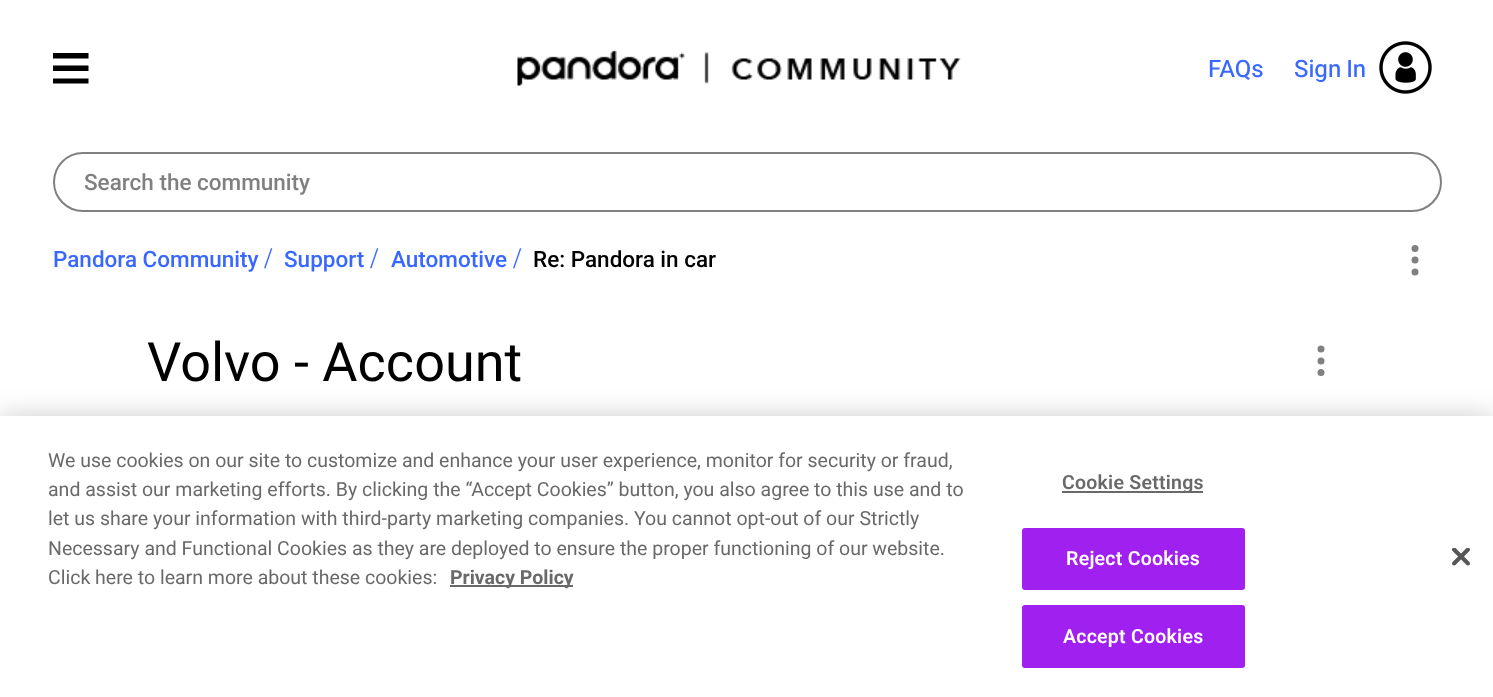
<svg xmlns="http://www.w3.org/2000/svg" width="1493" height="697">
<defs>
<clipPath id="clip1"><rect x="53" y="50" width="36" height="36"/></clipPath>
</defs>
<rect width="100%" height="100%" fill="#fff"/>
<g clip-path="url(#clip1)">
<path d="M52.5 53h36v5.5h-36zm0 12.5h36v5.5h-36zm0 13h36v5h-36z" fill="#000" fill-rule="evenodd"/>
</g>
<image x="517" y="50" width="444" height="36" href="media/1.png"/>
<text x="1208" y="77" style="font-family:'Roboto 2';font-size:24px;fill:#3868ff">FAQs</text>
<text x="1294" y="77" word-spacing="-1" style="font-family:'Roboto 2';font-size:24px;fill:#3868ff">Sign In</text>
<image x="1379" y="41" width="53" height="53" href="media/2.png"/>
<rect x="54" y="153" width="1387" height="58" rx="29" fill="none" stroke="#808080" stroke-width="2"/>
<text x="84" y="190" style="font-family:Roboto;font-size:22.5px;font-weight:500;fill:#808080">Search the community</text>
<text x="53" y="267" style="font-family:Roboto;font-size:22.5px;font-weight:500;fill:#3868ff">Pandora Community</text>
<text x="264" y="268" style="font-family:Liberation Serif;font-size:30px;fill:#3868ff">/</text>
<text x="284" y="267" style="font-family:Roboto;font-size:22.5px;font-weight:500;fill:#3868ff">Support</text>
<text x="370" y="268" style="font-family:Liberation Serif;font-size:30px;fill:#3868ff">/</text>
<text x="391" y="267" style="font-family:Roboto;font-size:22.5px;font-weight:500;fill:#3868ff">Automotive</text>
<text x="513" y="268" style="font-family:Liberation Serif;font-size:30px;fill:#3868ff">/</text>
<text x="533" y="267" style="font-family:Roboto;font-size:22.5px;font-weight:500;fill:#000">Re: Pandora in car</text>
<circle cx="1415" cy="248.5" r="3.5" fill="#808080"/>
<circle cx="1415" cy="260" r="3.5" fill="#808080"/>
<circle cx="1415" cy="272" r="3.5" fill="#808080"/>
<text x="147" y="381" style="font-family:Roboto;font-size:54px;fill:#000">Volvo - Account</text>
<circle cx="1321" cy="349" r="3.5" fill="#808080"/>
<circle cx="1321" cy="361" r="3.5" fill="#808080"/>
<circle cx="1321" cy="372.5" r="3.5" fill="#808080"/>
<rect y="416" width="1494" height="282" fill="#00000033" filter="blur(13.5px)"/>
<rect y="416" width="1493" height="281" fill="#fff"/>
<text x="48" y="467" style="font-family:Roboto;font-size:19.5px;fill:#696969">We use cookies on our site to customize and enhance your user experience, monitor for security or fraud,</text>
<text x="48" y="496" style="font-family:Roboto;font-size:19.5px;fill:#696969">and assist our marketing efforts. By clicking the “Accept Cookies” button, you also agree to this use and to</text>
<text x="48" y="525" style="font-family:Roboto;font-size:19.5px;fill:#696969">let us share your information with third-party marketing companies. You cannot opt-out of our Strictly</text>
<text x="48" y="555" style="font-family:Roboto;font-size:19.5px;fill:#696969">Necessary and Functional Cookies as they are deployed to ensure the proper functioning of our website.</text>
<text x="48" y="584" style="font-family:Roboto;font-size:19.5px;fill:#696969">Click here to learn more about these cookies:</text>
<rect x="450" y="585" width="123" height="2" fill="#696969"/>
<text x="450" y="584" style="font-family:Roboto;font-size:19.5px;font-weight:bold;fill:#696969">Privacy Policy</text>
<rect x="1062" y="491" width="141" height="2" fill="#696969"/>
<text x="1062" y="489" style="font-family:Roboto;font-size:19.5px;font-weight:600;letter-spacing:0.25px;fill:#696969">Cookie Settings</text>
<rect x="1023" y="529" width="221" height="60" rx="2" fill="#a020f0" stroke="#a020f0" stroke-width="2"/>
<text x="1066" y="565" style="font-family:Roboto;font-size:19.5px;font-weight:600;letter-spacing:0.25px;fill:#fff">Reject Cookies</text>
<rect x="1023" y="606" width="221" height="61" rx="2" fill="#a020f0" stroke="#a020f0" stroke-width="2"/>
<text x="1063" y="643" style="font-family:Roboto;font-size:19.5px;font-weight:600;letter-spacing:0.25px;fill:#fff">Accept Cookies</text>
<image x="1452" y="548" width="18" height="18" href="media/3.png"/>
</svg>
